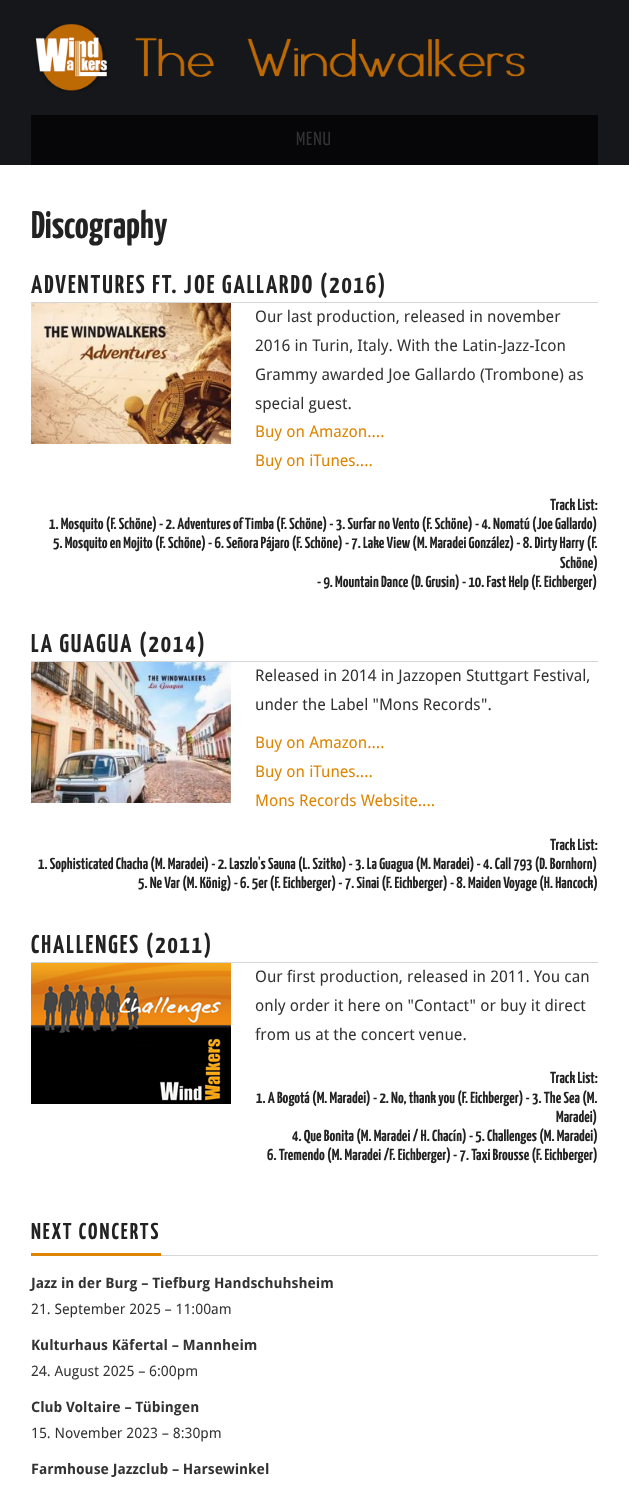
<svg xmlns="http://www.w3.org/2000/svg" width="629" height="1487">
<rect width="100%" height="100%" fill="#fff"/>
<rect width="629" height="165" fill="#16171b"/>
<image x="35" y="24" width="490" height="68" href="media/1.png"/>
<rect x="31" y="115" width="567" height="50" fill="#060608"/>
<text x="296" y="145" style="font-family:Yanone Kaffeesatz;font-size:19px;letter-spacing:1px;fill:#333">MENU</text>
<text x="31" y="238" style="font-family:Yanone Kaffeesatz;font-size:38.5px;font-weight:bold;fill:#222">Discography</text>
<rect x="31" y="302" width="567" height="1" fill="#d6d6d6"/>
<text x="31" y="293" style="font-family:Yanone Kaffeesatz;font-size:25.6px;font-weight:bold;letter-spacing:2px;fill:#222">ADVENTURES FT. JOE GALLARDO (2016)</text>
<image x="31" y="303" width="200" height="141" href="media/2.png"/>
<text x="255" y="322" style="font-family:Droid Sans;font-size:16px;fill:#333">Our last production, released in november</text>
<text x="255" y="351" style="font-family:Droid Sans;font-size:16px;fill:#333">2016 in Turin, Italy. With the Latin-Jazz-Icon</text>
<text x="255" y="380" style="font-family:Droid Sans;font-size:16px;fill:#333">Grammy awarded Joe Gallardo (Trombone) as</text>
<text x="255" y="409" style="font-family:Droid Sans;font-size:16px;fill:#333">special guest.</text>
<text x="255" y="437" style="font-family:Droid Sans;font-size:16px;fill:#dd8500">Buy on Amazon....</text>
<text x="255" y="466" style="font-family:Droid Sans;font-size:16px;fill:#dd8500">Buy on iTunes....</text>
<text x="550" y="510" style="font-family:Yanone Kaffeesatz;font-size:16px;font-weight:bold;fill:#222">Track List:</text>
<text x="49" y="529" style="font-family:Yanone Kaffeesatz;font-size:16px;font-weight:bold;fill:#222">1. Mosquito (F. Schöne) - 2. Adventures of Timba (F. Schöne) - 3. Surfar no Vento (F. Schöne) - 4. Nomatú (Joe Gallardo)</text>
<text x="53" y="548" style="font-family:Yanone Kaffeesatz;font-size:16px;font-weight:bold;fill:#222">5. Mosquito en Mojito (F. Schöne) - 6. Señora Pájaro (F. Schöne) - 7. Lake View (M. Maradei González) - 8. Dirty Harry (F.</text>
<text x="560" y="568" style="font-family:Yanone Kaffeesatz;font-size:16px;font-weight:bold;fill:#222">Schöne)</text>
<text x="317" y="587" style="font-family:Yanone Kaffeesatz;font-size:16px;font-weight:bold;fill:#222">- 9. Mountain Dance (D. Grusin) - 10. Fast Help (F. Eichberger)</text>
<rect x="31" y="661" width="567" height="1" fill="#d6d6d6"/>
<text x="31" y="652" style="font-family:Yanone Kaffeesatz;font-size:25.6px;font-weight:bold;letter-spacing:2px;fill:#222">LA GUAGUA (2014)</text>
<image x="31" y="662" width="200" height="141" href="media/3.png"/>
<text x="255" y="681" style="font-family:Droid Sans;font-size:16px;fill:#333">Released in 2014 in Jazzopen Stuttgart Festival,</text>
<text x="255" y="710" style="font-family:Droid Sans;font-size:16px;fill:#333">under the Label "Mons Records".</text>
<text x="255" y="748" style="font-family:Droid Sans;font-size:16px;fill:#dd8500">Buy on Amazon....</text>
<text x="255" y="777" style="font-family:Droid Sans;font-size:16px;fill:#dd8500">Buy on iTunes....</text>
<text x="255" y="806" style="font-family:Droid Sans;font-size:16px;fill:#dd8500">Mons Records Website....</text>
<text x="550" y="850" style="font-family:Yanone Kaffeesatz;font-size:16px;font-weight:bold;fill:#222">Track List:</text>
<text x="38" y="869" style="font-family:Yanone Kaffeesatz;font-size:16px;font-weight:bold;fill:#222">1. Sophisticated Chacha (M. Maradei) - 2. Laszlo's Sauna (L. Szitko) - 3. La Guagua (M. Maradei) - 4. Call 793 (D. Bornhorn)</text>
<text x="138" y="888" style="font-family:Yanone Kaffeesatz;font-size:16px;font-weight:bold;fill:#222">5. Ne Var (M. König) - 6. 5er (F. Eichberger) - 7. Sinai (F. Eichberger) - 8. Maiden Voyage (H. Hancock)</text>
<rect x="31" y="962" width="567" height="1" fill="#d6d6d6"/>
<text x="31" y="953" style="font-family:Yanone Kaffeesatz;font-size:25.6px;font-weight:bold;letter-spacing:2px;fill:#222">CHALLENGES (2011)</text>
<image x="31" y="963" width="200" height="141" href="media/4.png"/>
<text x="255" y="982" style="font-family:Droid Sans;font-size:16px;fill:#333">Our first production, released in 2011. You can</text>
<text x="255" y="1011" style="font-family:Droid Sans;font-size:16px;fill:#333">only order it here on "Contact" or buy it direct</text>
<text x="255" y="1040" style="font-family:Droid Sans;font-size:16px;fill:#333">from us at the concert venue.</text>
<text x="550" y="1083" style="font-family:Yanone Kaffeesatz;font-size:16px;font-weight:bold;fill:#222">Track List:</text>
<text x="256" y="1103" style="font-family:Yanone Kaffeesatz;font-size:16px;font-weight:bold;fill:#222">1. A Bogotá (M. Maradei) - 2. No, thank you (F. Eichberger) - 3. The Sea (M.</text>
<text x="556" y="1122" style="font-family:Yanone Kaffeesatz;font-size:16px;font-weight:bold;fill:#222">Maradei)</text>
<text x="292" y="1141" style="font-family:Yanone Kaffeesatz;font-size:16px;font-weight:bold;fill:#222">4. Que Bonita (M. Maradei / H. Chacín) - 5. Challenges (M. Maradei)</text>
<text x="267" y="1160" style="font-family:Yanone Kaffeesatz;font-size:16px;font-weight:bold;fill:#222">6. Tremendo (M. Maradei /F. Eichberger) - 7. Taxi Brousse (F. Eichberger)</text>
<rect x="161" y="1255" width="437" height="1" fill="#d6d6d6"/>
<rect x="31" y="1253" width="130" height="3" fill="#dd8500"/>
<text x="31" y="1239" style="font-family:Yanone Kaffeesatz;font-size:23px;font-weight:bold;letter-spacing:2px;fill:#222">NEXT CONCERTS</text>
<text x="31" y="1288" style="font-family:Droid Sans;font-size:14.4px;font-weight:bold;fill:#333">Jazz in der Burg – Tiefburg Handschuhsheim</text>
<text x="31" y="1314" style="font-family:Droid Sans;font-size:14.4px;fill:#333">21. September 2025 – 11:00am</text>
<text x="31" y="1350" style="font-family:Droid Sans;font-size:14.4px;font-weight:bold;fill:#333">Kulturhaus Käfertal – Mannheim</text>
<text x="31" y="1376" style="font-family:Droid Sans;font-size:14.4px;fill:#333">24. August 2025 – 6:00pm</text>
<text x="31" y="1412" style="font-family:Droid Sans;font-size:14.4px;font-weight:bold;fill:#333">Club Voltaire – Tübingen</text>
<text x="31" y="1438" style="font-family:Droid Sans;font-size:14.4px;fill:#333">15. November 2023 – 8:30pm</text>
<text x="31" y="1474" style="font-family:Droid Sans;font-size:14.4px;font-weight:bold;fill:#333">Farmhouse Jazzclub – Harsewinkel</text>
</svg>
